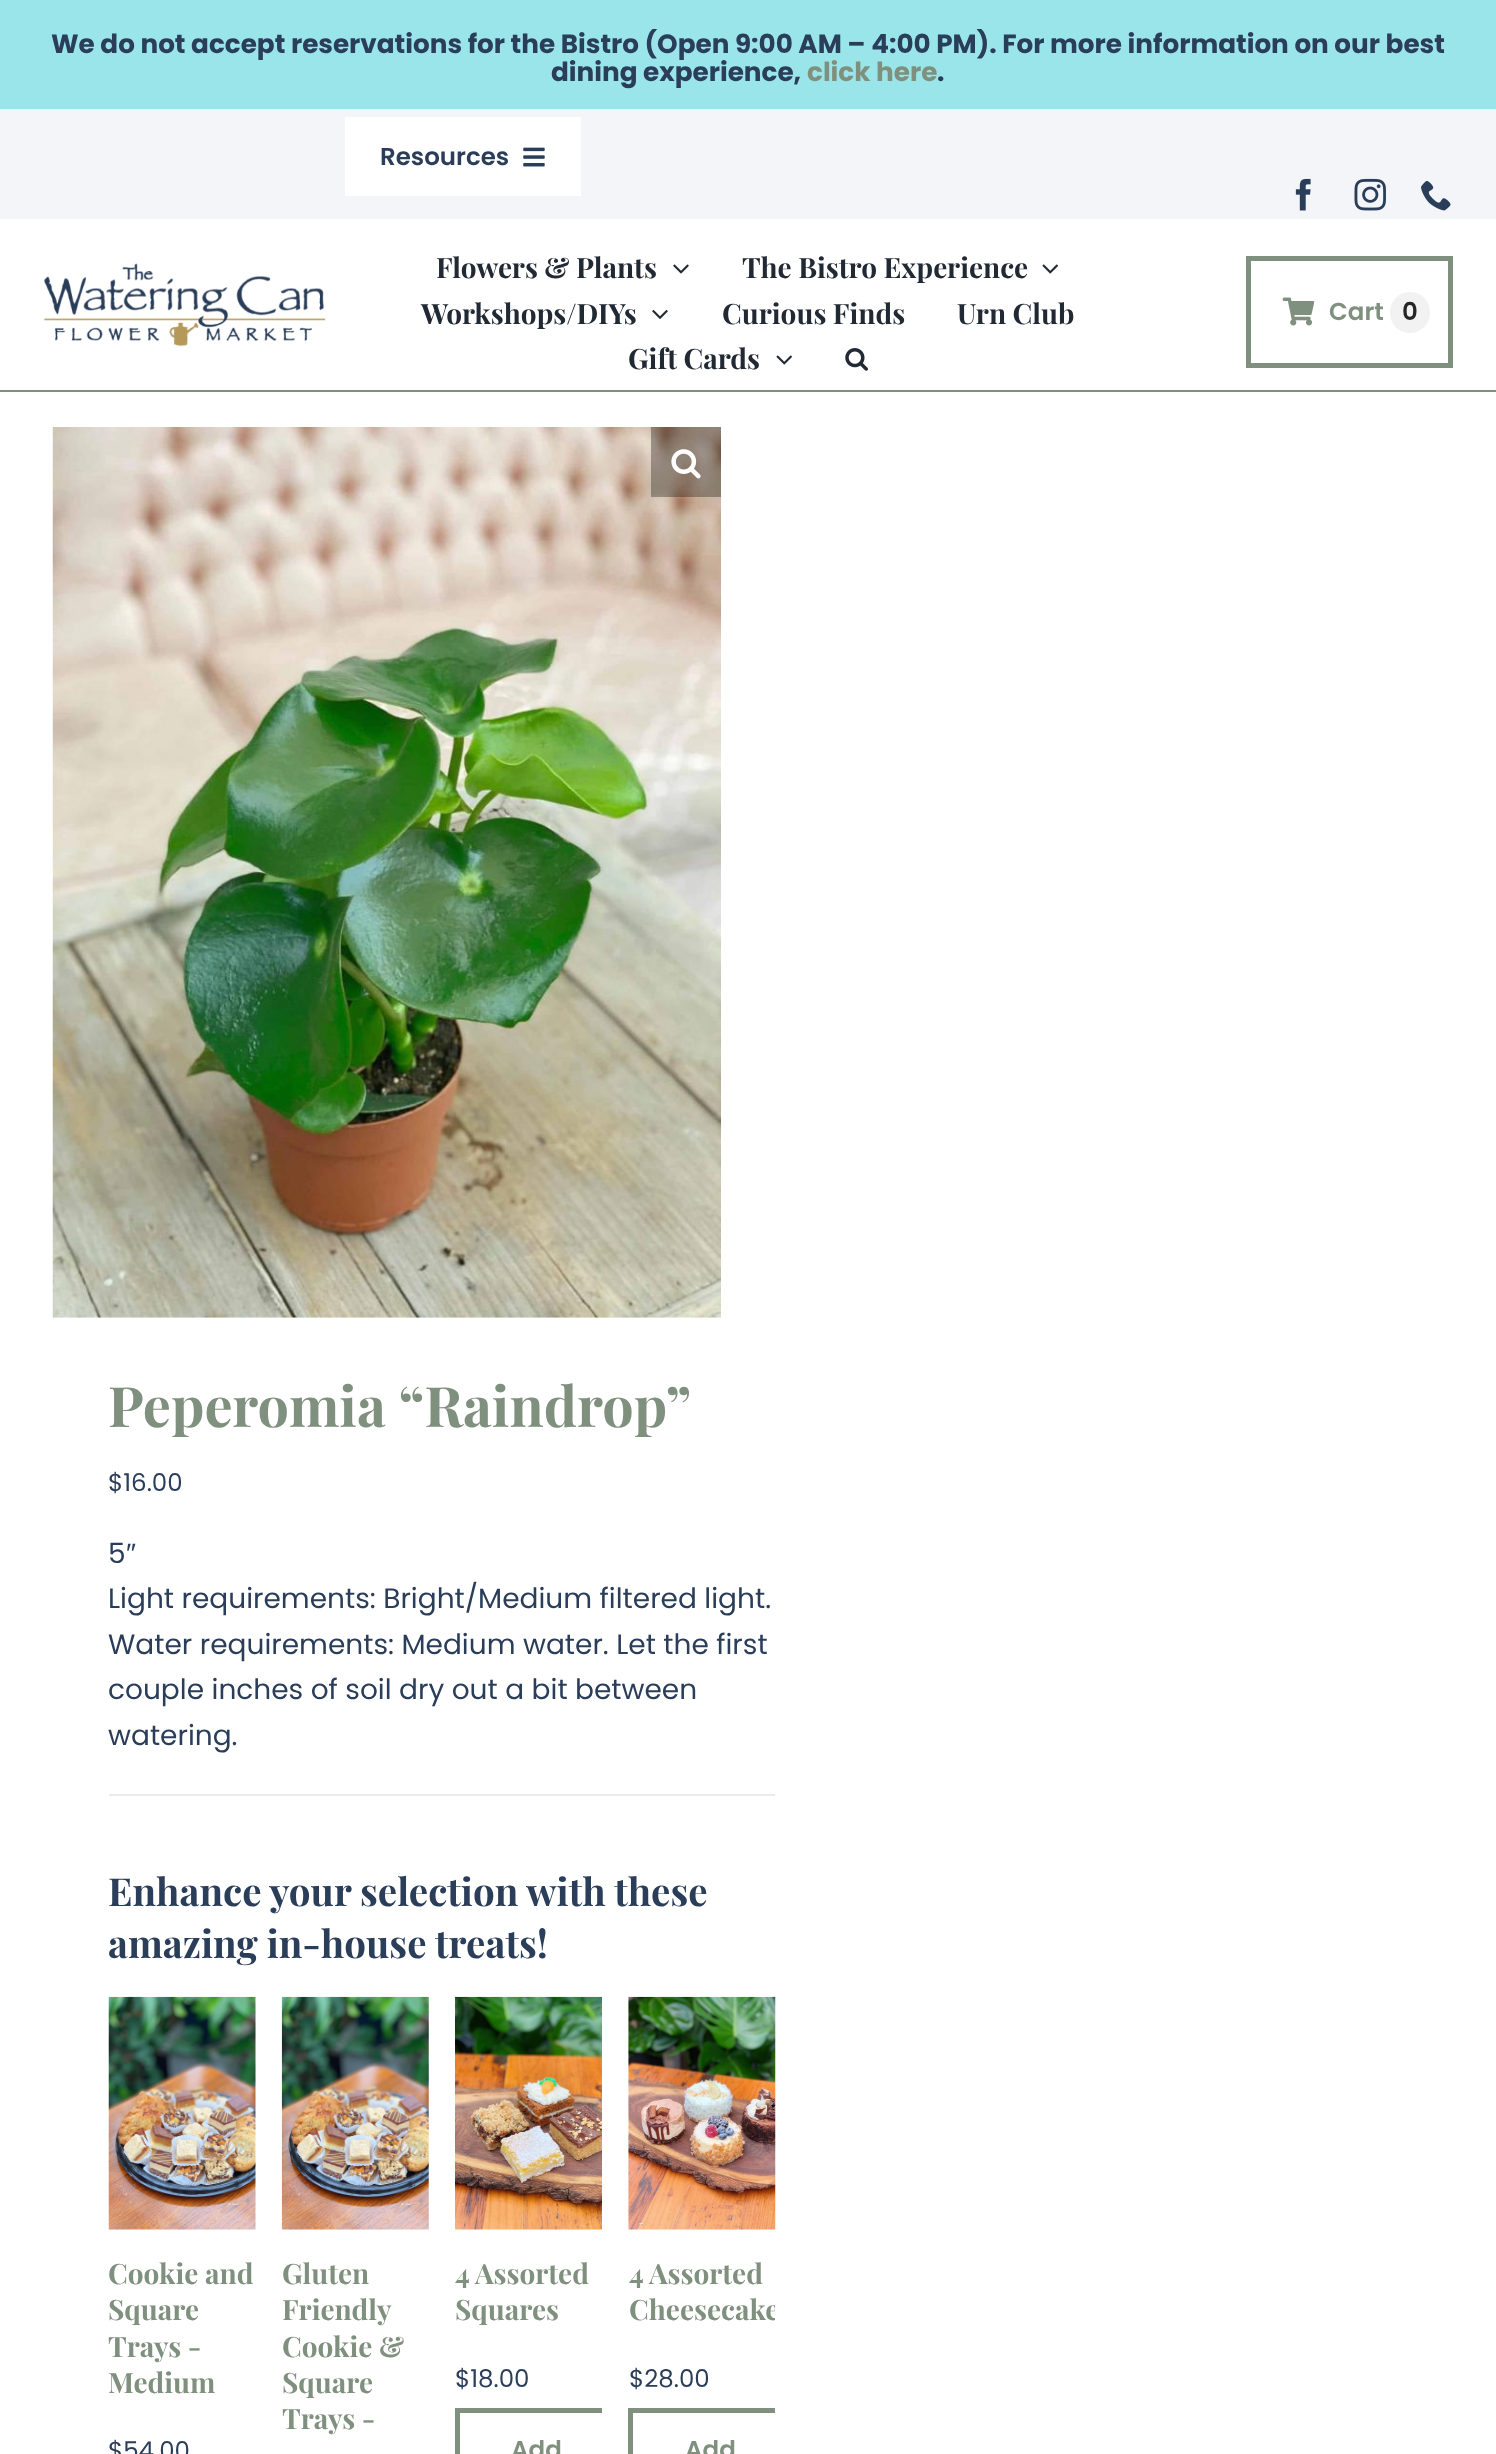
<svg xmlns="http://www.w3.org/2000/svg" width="1496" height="2454">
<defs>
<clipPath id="clip1"><rect x="455" y="1997" width="147" height="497"/></clipPath>
<clipPath id="clip2"><rect x="628" y="1997" width="147" height="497"/></clipPath>
</defs>
<rect width="100%" height="100%" fill="#fff"/>
<rect width="1496" height="109" fill="#9ae5ea"/>
<text x="51" y="53" style="font-family:Poppins;font-size:26.25px;font-weight:bold;fill:#2a3d59">We do not accept reservations for the Bistro (Open 9:00 AM – 4:00 PM). For more information on our best</text>
<text x="551" y="81" style="font-family:Poppins;font-size:26.25px;font-weight:bold;fill:#2a3d59">dining experience,</text>
<text x="807" y="81" style="font-family:Poppins;font-size:26.25px;font-weight:bold;fill:#80907e">click here</text>
<text x="937" y="81" style="font-family:Poppins;font-size:26.25px;font-weight:bold;fill:#2a3d59">.</text>
<rect y="109" width="1496" height="110" fill="#f3f5f9"/>
<rect x="345" y="117" width="236" height="79" fill="#fff"/>
<text x="380" y="165" style="font-family:Poppins;font-size:24.5px;font-weight:600;fill:#2a3d59">Resources</text>
<image x="523" y="147" width="22" height="20" href="media/1.png"/>
<image x="1295" y="178" width="16" height="33" href="media/2.png"/>
<image x="1354" y="178" width="32" height="33" href="media/3.png"/>
<image x="1421" y="181" width="30" height="30" href="media/4.png"/>
<rect y="390" width="1496" height="2" fill="#80907e"/>
<image x="43" y="263" width="283" height="84" href="media/5.png"/>
<text x="436" y="278" style="font-family:Playfair Display;font-size:28px;font-weight:bold;fill:#212934">Flowers &amp; Plants</text>
<image x="673" y="264" width="16" height="10" href="media/6.png"/>
<text x="742" y="278" style="font-family:Playfair Display;font-size:28px;font-weight:bold;fill:#212934">The Bistro Experience</text>
<image x="1042" y="264" width="16" height="10" href="media/7.png"/>
<text x="421" y="324" style="font-family:Playfair Display;font-size:28px;font-weight:bold;fill:#212934">Workshops/DIYs</text>
<image x="652" y="310" width="16" height="9" href="media/8.png"/>
<text x="722" y="324" style="font-family:Playfair Display;font-size:28px;font-weight:bold;fill:#212934">Curious Finds</text>
<text x="957" y="324" style="font-family:Playfair Display;font-size:28px;font-weight:bold;fill:#212934">Urn Club</text>
<text x="628" y="369" style="font-family:Playfair Display;font-size:28px;font-weight:bold;fill:#212934">Gift Cards</text>
<image x="776" y="355" width="16" height="10" href="media/7.png"/>
<image x="845" y="348" width="23" height="23" href="media/9.png"/>
<rect x="1248.5" y="258.5" width="202" height="107" fill="none" stroke="#80907e" stroke-width="5"/>
<image x="1282" y="297" width="33" height="29" href="media/10.png"/>
<text x="1329" y="320" style="font-family:Poppins;font-size:24.5px;font-weight:600;fill:#80907e">Cart</text>
<rect x="1390" y="292" width="40" height="41" rx="20" fill="#f2f2f2"/>
<text x="1402" y="320" style="font-family:Poppins;font-size:24.5px;font-weight:600;fill:#262626">0</text>
<image x="52" y="427" width="669" height="891" href="media/11.png"/>
<rect x="651" y="427" width="70" height="70" fill="#0000004d"/>
<image x="671" y="449" width="30" height="30" href="media/12.png"/>
<text x="108" y="1427" style="font-family:Playfair Display;font-size:55.75px;font-weight:bold;fill:#80907e">Peperomia “Raindrop”</text>
<text x="108" y="1491" style="font-family:Poppins;font-size:24.5px;fill:#2a3d59">$16.00</text>
<rect x="109" y="1794" width="666" height="2" fill="#ebebeb"/>
<text x="108" y="1563" style="font-family:Poppins;font-size:28px;fill:#2a3d59">5</text>
<text x="126" y="1563" style="font-family:Liberation Sans;font-size:28px;fill:#2a3d59">″</text>
<text x="108" y="1608" style="font-family:Poppins;font-size:28px;fill:#2a3d59">Light requirements: Bright/Medium filtered light.</text>
<text x="108" y="1654" style="font-family:Poppins;font-size:28px;fill:#2a3d59">Water requirements: Medium water. Let the first</text>
<text x="108" y="1699" style="font-family:Poppins;font-size:28px;fill:#2a3d59">couple inches of soil dry out a bit between</text>
<text x="108" y="1745" style="font-family:Poppins;font-size:28px;fill:#2a3d59">watering.</text>
<text x="108" y="1906" style="font-family:Playfair Display;font-size:38.5px;font-weight:bold;fill:#2a3d59">Enhance your selection with these</text>
<text x="108" y="1958" style="font-family:Playfair Display;font-size:38.5px;font-weight:bold;fill:#2a3d59">amazing in-house treats!</text>
<image x="108" y="1996" width="148" height="234" href="media/13.png"/>
<text x="108" y="2284" style="font-family:Playfair Display;font-size:28px;font-weight:bold;fill:#80907e">Cookie and</text>
<text x="108" y="2320" style="font-family:Playfair Display;font-size:28px;font-weight:bold;fill:#80907e">Square</text>
<text x="108" y="2357" style="font-family:Playfair Display;font-size:28px;font-weight:bold;fill:#80907e">Trays -</text>
<text x="108" y="2393" style="font-family:Playfair Display;font-size:28px;font-weight:bold;fill:#80907e">Medium</text>
<text x="108" y="2459" style="font-family:Poppins;font-size:24.5px;fill:#2a3d59">$54.00</text>
<image x="281" y="1996" width="148" height="234" href="media/14.png"/>
<text x="282" y="2284" style="font-family:Playfair Display;font-size:28px;font-weight:bold;fill:#80907e">Gluten</text>
<text x="282" y="2320" style="font-family:Playfair Display;font-size:28px;font-weight:bold;fill:#80907e">Friendly</text>
<text x="282" y="2357" style="font-family:Playfair Display;font-size:28px;font-weight:bold;fill:#80907e">Cookie &amp;</text>
<text x="282" y="2393" style="font-family:Playfair Display;font-size:28px;font-weight:bold;fill:#80907e">Square</text>
<text x="282" y="2429" style="font-family:Playfair Display;font-size:28px;font-weight:bold;fill:#80907e">Trays -</text>
<image x="455" y="1996" width="147" height="234" href="media/15.png"/>
<text x="455" y="2284" style="font-family:Playfair Display;font-size:28px;font-weight:bold;fill:#80907e">4 Assorted</text>
<text x="455" y="2320" style="font-family:Playfair Display;font-size:28px;font-weight:bold;fill:#80907e">Squares</text>
<text x="455" y="2387" style="font-family:Poppins;font-size:24.5px;fill:#2a3d59">$18.00</text>
<g clip-path="url(#clip1)">
<rect x="457.5" y="2410.5" width="158" height="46" fill="none" stroke="#80907e" stroke-width="5"/>
</g>
<text x="511" y="2458" style="font-family:Poppins;font-size:24.5px;font-weight:600;fill:#80907e">Add</text>
<image x="628" y="1996" width="148" height="234" href="media/16.png"/>
<text x="629" y="2284" style="font-family:Playfair Display;font-size:28px;font-weight:bold;fill:#80907e">4 Assorted</text>
<g clip-path="url(#clip2)">
<text x="629" y="2320" style="font-family:Playfair Display;font-size:28px;font-weight:bold;fill:#80907e">Cheesecake</text>
</g>
<text x="629" y="2387" style="font-family:Poppins;font-size:24.5px;fill:#2a3d59">$28.00</text>
<g clip-path="url(#clip2)">
<rect x="630.5" y="2410.5" width="158" height="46" fill="none" stroke="#80907e" stroke-width="5"/>
</g>
<text x="685" y="2458" style="font-family:Poppins;font-size:24.5px;font-weight:600;fill:#80907e">Add</text>
</svg>
